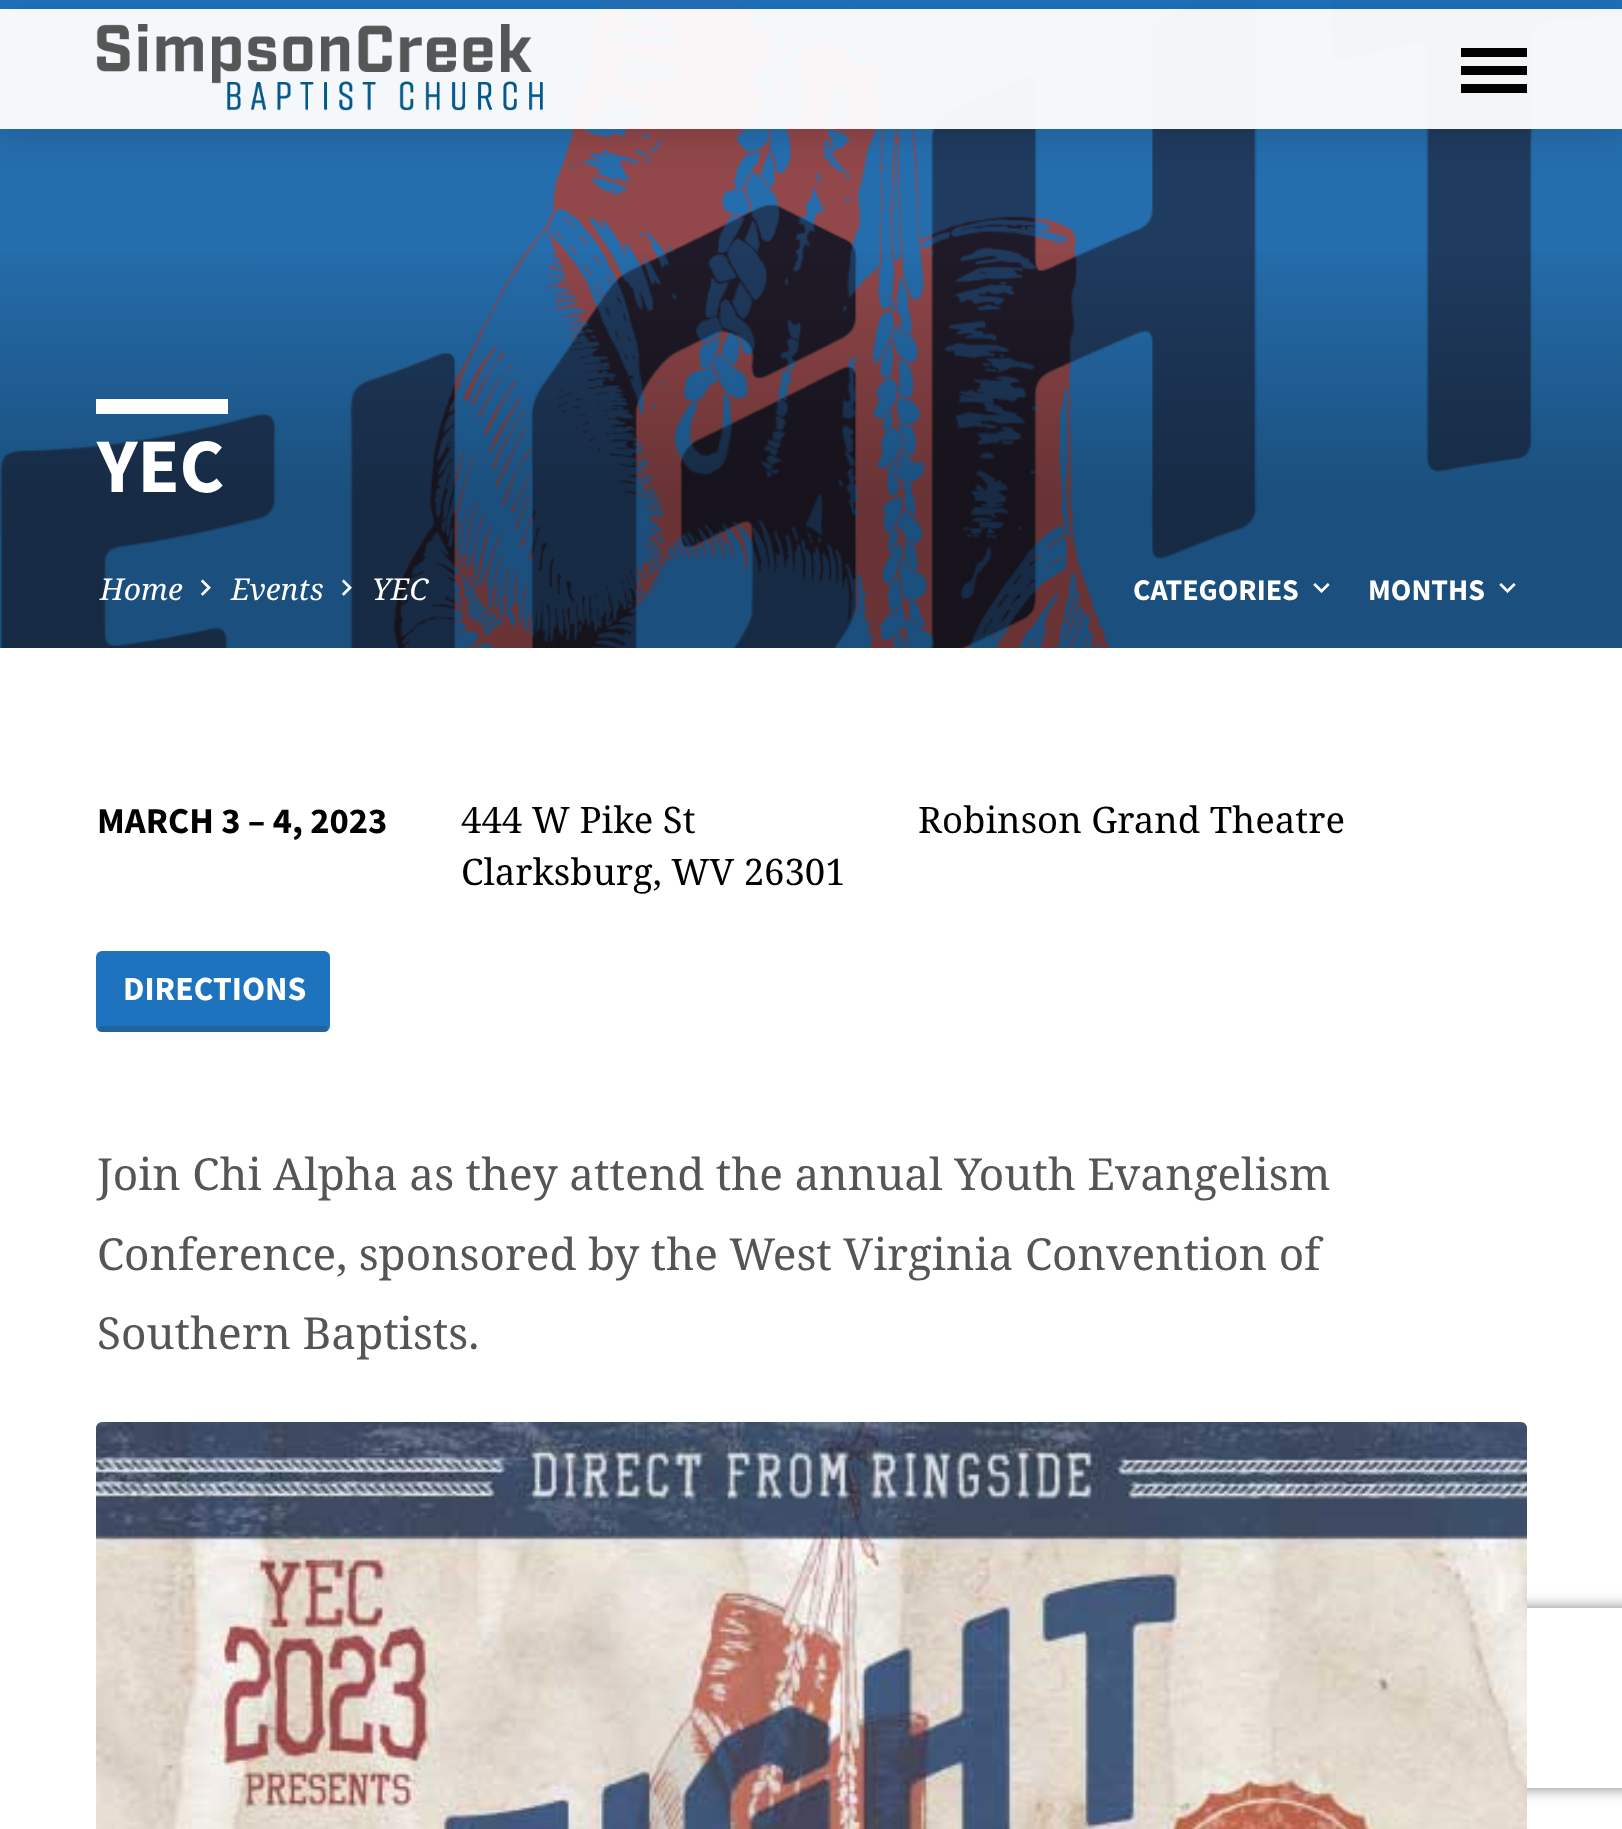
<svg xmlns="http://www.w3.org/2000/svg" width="1622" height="1829">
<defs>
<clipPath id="clip1"><path d="M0 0h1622v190h-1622zm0 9h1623v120h-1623z" clip-rule="evenodd"/></clipPath>
<linearGradient id="g1" gradientUnits="userSpaceOnUse" x1="812" y1="0" x2="812" y2="648"><stop offset="0" stop-color="#000" stop-opacity="0"/><stop offset="0.36" stop-color="#000" stop-opacity="0"/><stop offset="0.76" stop-color="#000" stop-opacity="0.28"/><stop offset="1" stop-color="#000" stop-opacity="0.28"/></linearGradient>
<clipPath id="clip2"><path d="M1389 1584h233v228h-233zm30 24h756c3.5 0 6 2.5 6 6v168c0 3.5-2.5 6-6 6h-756c-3.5 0-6-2.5-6-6v-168c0-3.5 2.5-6 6-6z" clip-rule="evenodd"/></clipPath>
</defs>
<rect width="100%" height="100%" fill="#fff"/>
<rect width="1622" height="648" fill="#256eae"/>
<image x="0" y="0" width="1622" height="648" href="media/2.png"/>
<rect width="1622" height="9" fill="#1e73bef2"/>
<rect y="9" width="1622" height="120" fill="#fffffff2"/>
<g clip-path="url(#clip1)">
<rect y="15" width="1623" height="120" fill="#00000024" filter="blur(18px)"/>
</g>
<image x="96" y="24" width="447" height="87" href="media/1.png"/>
<rect x="1461" y="48" width="66" height="9" fill="#000"/>
<rect x="1461" y="66" width="66" height="9" fill="#000"/>
<rect x="1461" y="84" width="66" height="9" fill="#000"/>
<rect y="253" width="1622" height="395" fill="url(#g1)"/>
<rect x="96" y="399" width="132" height="15" fill="#fff"/>
<text x="97" y="492" style="font-family:Source Sans Pro;font-size:77px;font-weight:bold;fill:#fff">YEC</text>
<text x="100" y="600" style="font-family:Noto Serif;font-size:30px;font-style:italic;fill:#fff">Home</text>
<image x="200" y="579" width="11" height="17" href="media/3.png"/>
<text x="231" y="600" style="font-family:Noto Serif;font-size:30px;font-style:italic;fill:#fff">Events</text>
<image x="341" y="579" width="11" height="17" href="media/4.png"/>
<text x="372" y="600" style="font-family:Noto Serif;font-size:30px;font-style:italic;fill:#fff">YEC</text>
<text x="1133" y="600" style="font-family:Source Sans Pro;font-size:30px;font-weight:bold;fill:#fff">CATEGORIES</text>
<image x="1313" y="583" width="17" height="10" href="media/5.png"/>
<text x="1368" y="600" style="font-family:Source Sans Pro;font-size:30px;font-weight:bold;fill:#fff">MONTHS</text>
<image x="1499" y="583" width="17" height="10" href="media/5.png"/>
<text x="97" y="833" style="font-family:Source Sans Pro;font-size:36.5px;font-weight:bold;fill:#000">MARCH 3 – 4, 2023</text>
<text x="461" y="833" style="font-family:Noto Serif;font-size:36.5px;fill:#000">444 W Pike St</text>
<text x="461" y="885" style="font-family:Noto Serif;font-size:36.5px;fill:#000">Clarksburg, WV 26301</text>
<text x="918" y="833" style="font-family:Noto Serif;font-size:36.5px;fill:#000">Robinson Grand Theatre</text>
<rect x="96" y="951" width="234" height="81" rx="6" fill="#1e73be"/>
<rect x="99" y="1026" width="228" height="6" fill="#32323240"/>
<text x="123" y="1000" style="font-family:Source Sans Pro;font-size:33.75px;font-weight:bold;fill:#fff">DIRECTIONS</text>
<text x="97" y="1190" style="font-family:Noto Serif;font-size:44.15px;fill:#555">Join Chi Alpha as they attend the annual Youth Evangelism</text>
<text x="97" y="1270" style="font-family:Noto Serif;font-size:44.15px;fill:#555">Conference, sponsored by the West Virginia Convention of</text>
<text x="97" y="1349" style="font-family:Noto Serif;font-size:44.15px;fill:#555">Southern Baptists.</text>
<g clip-path="url(#clip2)">
<rect x="1413" y="1608" width="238" height="180" rx="6" fill="#808080" filter="blur(7.5px)"/>
</g>
<image x="96" y="1422" width="1431" height="407" href="media/6.png"/>
</svg>
